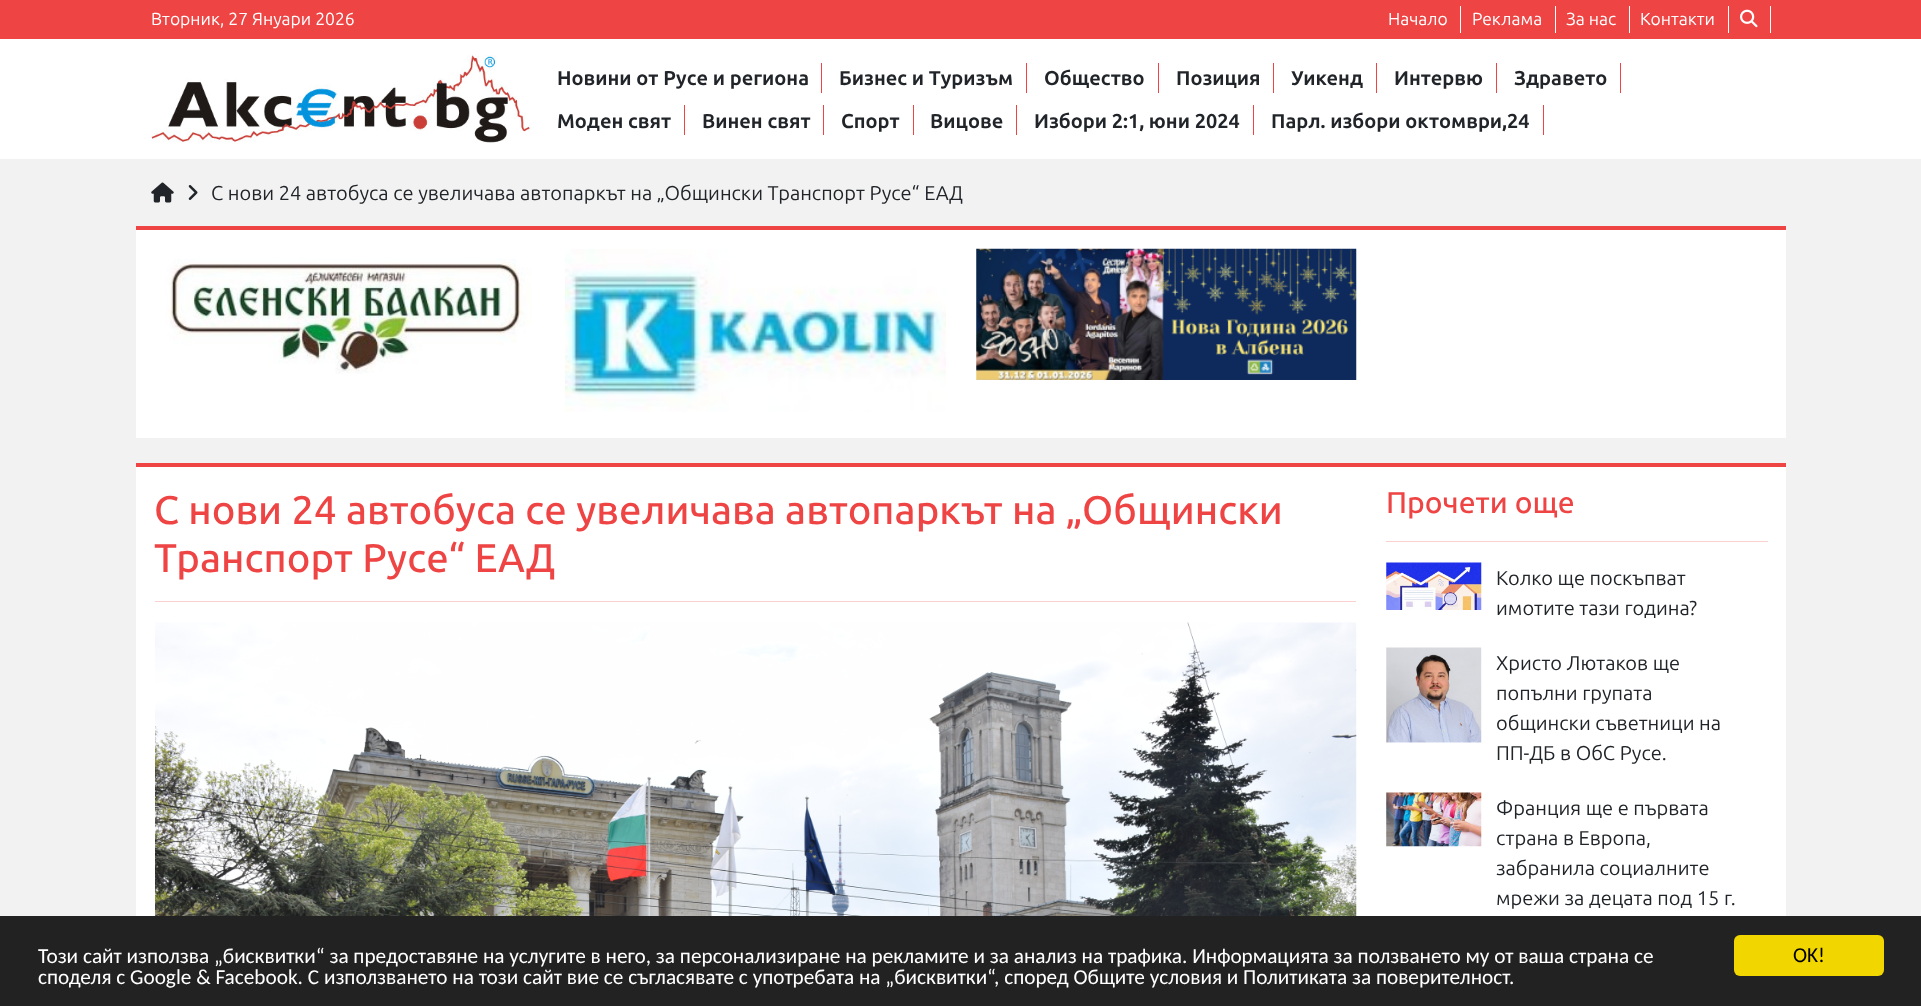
<svg xmlns="http://www.w3.org/2000/svg" width="1921" height="1006">
<rect width="100%" height="100%" fill="#f2f2f2"/>
<rect y="39" width="1921" height="120" fill="#fff"/>
<rect width="1921" height="39" fill="#ef4444"/>
<text x="151" y="25" style="font-family:Ubuntu;font-size:17.5px;fill:#fff">Вторник, 27 Януари 2026</text>
<rect x="1460" y="6" width="1" height="27" fill="#fff"/>
<text x="1388" y="25" style="font-family:Ubuntu;font-size:17.5px;fill:#fff">Начало</text>
<rect x="1555" y="6" width="1" height="27" fill="#fff"/>
<text x="1472" y="25" style="font-family:Ubuntu;font-size:17.5px;fill:#fff">Реклама</text>
<rect x="1629" y="6" width="1" height="27" fill="#fff"/>
<text x="1566" y="25" style="font-family:Ubuntu;font-size:17.5px;fill:#fff">За нас</text>
<rect x="1728" y="6" width="1" height="27" fill="#fff"/>
<text x="1640" y="25" style="font-family:Ubuntu;font-size:17.5px;fill:#fff">Контакти</text>
<rect x="1770" y="6" width="1" height="27" fill="#fff"/>
<image x="1740" y="9" width="18" height="19" href="media/1.png"/>
<image x="151" y="55" width="379" height="88" href="media/2.png"/>
<rect x="821" y="63" width="1" height="30" fill="#ef4444"/>
<text x="557" y="85" style="font-family:Ubuntu;font-size:20px;font-weight:bold;fill:#212529">Новини от Русе и региона</text>
<rect x="1026" y="63" width="1" height="30" fill="#ef4444"/>
<text x="839" y="85" style="font-family:Ubuntu;font-size:20px;font-weight:bold;fill:#212529">Бизнес и Туризъм</text>
<rect x="1158" y="63" width="1" height="30" fill="#ef4444"/>
<text x="1044" y="85" style="font-family:Ubuntu;font-size:20px;font-weight:bold;fill:#212529">Общество</text>
<rect x="1273" y="63" width="1" height="30" fill="#ef4444"/>
<text x="1176" y="85" style="font-family:Ubuntu;font-size:20px;font-weight:bold;fill:#212529">Позиция</text>
<rect x="1376" y="63" width="1" height="30" fill="#ef4444"/>
<text x="1291" y="85" style="font-family:Ubuntu;font-size:20px;font-weight:bold;fill:#212529">Уикенд</text>
<rect x="1496" y="63" width="1" height="30" fill="#ef4444"/>
<text x="1394" y="85" style="font-family:Ubuntu;font-size:20px;font-weight:bold;fill:#212529">Интервю</text>
<rect x="1620" y="63" width="1" height="30" fill="#ef4444"/>
<text x="1514" y="85" style="font-family:Ubuntu;font-size:20px;font-weight:bold;fill:#212529">Здравето</text>
<rect x="684" y="105" width="1" height="30" fill="#ef4444"/>
<text x="557" y="128" style="font-family:Ubuntu;font-size:20px;font-weight:bold;fill:#212529">Моден свят</text>
<rect x="823" y="105" width="1" height="30" fill="#ef4444"/>
<text x="702" y="128" style="font-family:Ubuntu;font-size:20px;font-weight:bold;fill:#212529">Винен свят</text>
<rect x="913" y="105" width="1" height="30" fill="#ef4444"/>
<text x="841" y="128" style="font-family:Ubuntu;font-size:20px;font-weight:bold;fill:#212529">Спорт</text>
<rect x="1016" y="105" width="1" height="30" fill="#ef4444"/>
<text x="930" y="128" style="font-family:Ubuntu;font-size:20px;font-weight:bold;fill:#212529">Вицове</text>
<rect x="1253" y="105" width="1" height="30" fill="#ef4444"/>
<text x="1034" y="128" style="font-family:Ubuntu;font-size:20px;font-weight:bold;fill:#212529">Избори 2:1, юни 2024</text>
<rect x="1543" y="105" width="1" height="30" fill="#ef4444"/>
<text x="1271" y="128" style="font-family:Ubuntu;font-size:20px;font-weight:bold;fill:#212529">Парл. избори октомври,24</text>
<image x="151" y="182" width="23" height="21" href="media/3.png"/>
<image x="188" y="185" width="10" height="15" href="media/4.png"/>
<text x="211" y="200" style="font-family:Ubuntu;font-size:20px;fill:#212529">С нови 24 автобуса се увеличава автопаркът на „Общински Транспорт Русе“ ЕАД</text>
<rect x="136" y="230" width="1650" height="208" fill="#fff"/>
<rect x="136" y="226" width="1650" height="4" fill="#ef4444"/>
<image x="166" y="258" width="366" height="116" href="media/5.png"/>
<image x="565" y="249" width="381" height="163" href="media/6.png"/>
<image x="976" y="248" width="381" height="132" href="media/7.png"/>
<rect x="136" y="467" width="1650" height="449" fill="#fff"/>
<rect x="136" y="463" width="1650" height="4" fill="#ef4444"/>
<text x="154" y="524" style="font-family:Ubuntu;font-size:40px;font-weight:500;fill:#ef4444">С нови 24 автобуса се увеличава автопаркът на „Общински</text>
<text x="154" y="572" style="font-family:Ubuntu;font-size:40px;font-weight:500;fill:#ef4444">Транспорт Русе“ ЕАД</text>
<rect x="155" y="601" width="1201" height="1" fill="#fbd0d0"/>
<image x="155" y="622" width="1202" height="294" href="media/8.png"/>
<text x="1386" y="513" style="font-family:Ubuntu;font-size:30px;font-weight:500;fill:#ef4444">Прочети още</text>
<rect x="1386" y="541" width="382" height="1" fill="#fbd0d0"/>
<image x="1386" y="562" width="96" height="48" href="media/9.png"/>
<text x="1496" y="585" style="font-family:Ubuntu;font-size:20px;fill:#212529">Колко ще поскъпват</text>
<text x="1496" y="615" style="font-family:Ubuntu;font-size:20px;fill:#212529">имотите тази година?</text>
<image x="1386" y="647" width="96" height="96" href="media/10.png"/>
<text x="1496" y="670" style="font-family:Ubuntu;font-size:20px;fill:#212529">Христо Лютаков ще</text>
<text x="1496" y="700" style="font-family:Ubuntu;font-size:20px;fill:#212529">попълни групата</text>
<text x="1496" y="730" style="font-family:Ubuntu;font-size:20px;fill:#212529">общински съветници на</text>
<text x="1496" y="760" style="font-family:Ubuntu;font-size:20px;fill:#212529">ПП-ДБ в ОбС Русе.</text>
<image x="1386" y="792" width="96" height="55" href="media/11.png"/>
<text x="1496" y="815" style="font-family:Ubuntu;font-size:20px;fill:#212529">Франция ще е първата</text>
<text x="1496" y="845" style="font-family:Ubuntu;font-size:20px;fill:#212529">страна в Европа,</text>
<text x="1496" y="875" style="font-family:Ubuntu;font-size:20px;fill:#212529">забранила социалните</text>
<text x="1496" y="905" style="font-family:Ubuntu;font-size:20px;fill:#212529">мрежи за децата под 15 г.</text>
<rect y="916" width="1921" height="90" fill="#222"/>
<text x="38" y="963" style="font-family:Carlito;font-size:21.25px;fill:#fff">Този сайт използва „бисквитки“ за предоставяне на услугите в него, за персонализиране на рекламите и за анализ на трафика. Информацията за ползването му от ваша страна се</text>
<text x="38" y="984" style="font-family:Carlito;font-size:21.25px;fill:#fff">споделя с Google &amp; Facebook. С използването на този сайт вие се съгласявате с употребата на „бисквитки“, според Общите условия и</text>
<text x="1243" y="984" style="font-family:Carlito;font-size:21.25px;fill:#fff">Политиката за поверителност</text>
<text x="1509" y="984" style="font-family:Carlito;font-size:21.25px;fill:#fff">.</text>
<rect x="1734" y="935" width="150" height="41" rx="6" fill="#f1d600"/>
<text x="1793" y="962" style="font-family:Carlito;font-size:21.25px;fill:#000">OK!</text>
</svg>
